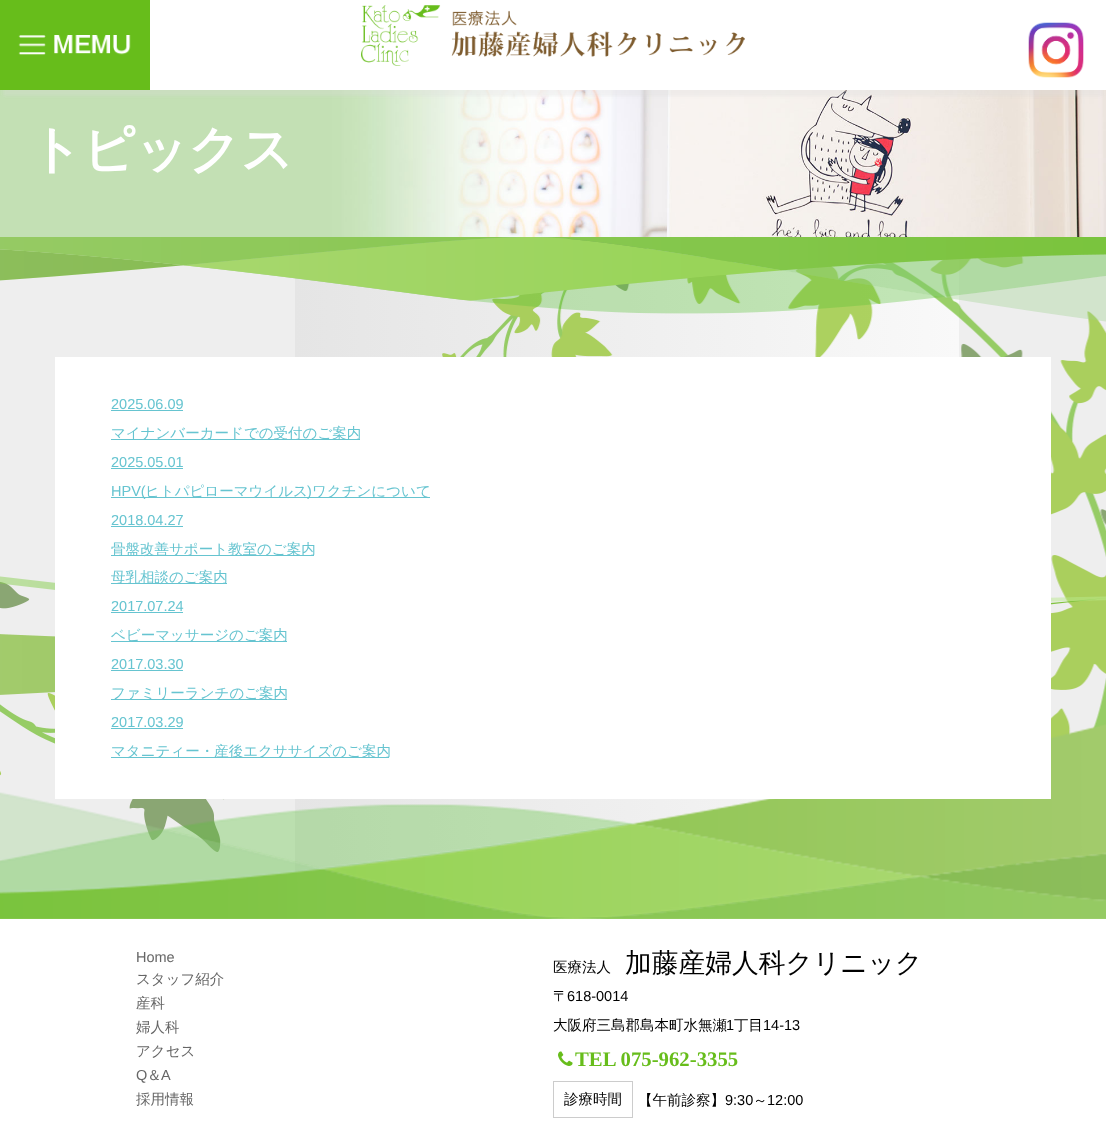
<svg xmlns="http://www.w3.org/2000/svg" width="1106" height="1129">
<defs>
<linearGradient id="g1" gradientUnits="userSpaceOnUse" x1="295" y1="565" x2="959" y2="565"><stop offset="0" stop-color="#e5e5e5"/><stop offset="1" stop-color="#f9f9f9"/></linearGradient>
</defs>
<rect width="100%" height="100%" fill="#eee"/>
<image x="0" y="90" width="1106" height="147" href="media/5.png"/>
<rect x="3" y="12" width="1100" height="84" fill="#dbdbdb4d" filter="blur(1.5px)"/>
<rect x="150" width="956" height="90" fill="#fff"/>
<image x="361" y="5" width="384" height="61" href="media/1.png"/>
<rect width="150" height="90" fill="#67bd1b"/>
<image x="18" y="35" width="113" height="20" href="media/2.png"/>
<image x="1028" y="22" width="56" height="56" href="media/3.png"/>
<rect x="295" y="237" width="664" height="682" fill="url(#g1)"/>
<image x="0" y="238" width="1106" height="650" href="media/4.png"/>
<text x="30" y="167" style="font-family:WenQuanYi Zen Hei;font-size:51.5px;font-weight:bold;fill:#fff">トピックス</text>
<image x="0" y="237" width="1106" height="682" href="media/6.png"/>
<rect x="55" y="357" width="996" height="442" fill="#fff"/>
<text x="111" y="409" style="font-family:Liberation Sans;font-size:14.5px;fill:#66c4d0">2025.06.09</text>
<rect x="111" y="410" width="72" height="1" fill="#66c4d0"/>
<rect x="111" y="439" width="249" height="1" fill="#66c4d0"/>
<text x="111" y="438" style="font-family:WenQuanYi Zen Hei;font-size:14.5px;font-weight:500;fill:#66c4d0">マイナンバーカードでの受付のご案内</text>
<text x="111" y="467" style="font-family:Liberation Sans;font-size:14.5px;fill:#66c4d0">2025.05.01</text>
<rect x="111" y="468" width="72" height="1" fill="#66c4d0"/>
<rect x="111" y="497" width="319" height="1" fill="#66c4d0"/>
<text x="111" y="496" style="font-family:Liberation Sans;font-size:14.5px;fill:#66c4d0">HPV(</text>
<text x="145" y="496" style="font-family:WenQuanYi Zen Hei;font-size:14.5px;font-weight:500;fill:#66c4d0">ヒトパピローマウイルス</text>
<text x="307" y="496" style="font-family:Liberation Sans;font-size:14.5px;fill:#66c4d0">)</text>
<text x="312" y="496" style="font-family:WenQuanYi Zen Hei;font-size:14.5px;font-weight:500;fill:#66c4d0">ワクチンについて</text>
<text x="111" y="525" style="font-family:Liberation Sans;font-size:14.5px;fill:#66c4d0">2018.04.27</text>
<rect x="111" y="526" width="72" height="1" fill="#66c4d0"/>
<rect x="111" y="555" width="203" height="1" fill="#66c4d0"/>
<text x="111" y="554" style="font-family:WenQuanYi Zen Hei;font-size:14.5px;font-weight:500;fill:#66c4d0">骨盤改善サポート教室のご案内</text>
<rect x="111" y="583" width="116" height="1" fill="#66c4d0"/>
<text x="111" y="582" style="font-family:WenQuanYi Zen Hei;font-size:14.5px;font-weight:500;fill:#66c4d0">母乳相談のご案内</text>
<text x="111" y="611" style="font-family:Liberation Sans;font-size:14.5px;fill:#66c4d0">2017.07.24</text>
<rect x="111" y="612" width="72" height="1" fill="#66c4d0"/>
<rect x="111" y="641" width="176" height="1" fill="#66c4d0"/>
<text x="111" y="640" style="font-family:WenQuanYi Zen Hei;font-size:14.5px;font-weight:500;fill:#66c4d0">ベビーマッサージのご案内</text>
<text x="111" y="669" style="font-family:Liberation Sans;font-size:14.5px;fill:#66c4d0">2017.03.30</text>
<rect x="111" y="670" width="72" height="1" fill="#66c4d0"/>
<rect x="111" y="699" width="176" height="1" fill="#66c4d0"/>
<text x="111" y="698" style="font-family:WenQuanYi Zen Hei;font-size:14.5px;font-weight:500;fill:#66c4d0">ファミリーランチのご案内</text>
<text x="111" y="727" style="font-family:Liberation Sans;font-size:14.5px;fill:#66c4d0">2017.03.29</text>
<rect x="111" y="728" width="72" height="1" fill="#66c4d0"/>
<rect x="111" y="757" width="278" height="1" fill="#66c4d0"/>
<text x="111" y="756" style="font-family:WenQuanYi Zen Hei;font-size:14.5px;font-weight:500;fill:#66c4d0">マタニティー・産後エクササイズのご案内</text>
<rect y="919" width="1106" height="210" fill="#fff"/>
<text x="136" y="962" style="font-family:Liberation Sans;font-size:14.5px;fill:#666">Home</text>
<text x="136" y="984" style="font-family:WenQuanYi Zen Hei;font-size:14.5px;font-weight:500;fill:#666">スタッフ紹介</text>
<text x="136" y="1008" style="font-family:WenQuanYi Zen Hei;font-size:14.5px;font-weight:500;fill:#666">産科</text>
<text x="136" y="1032" style="font-family:WenQuanYi Zen Hei;font-size:14.5px;font-weight:500;fill:#666">婦人科</text>
<text x="136" y="1056" style="font-family:WenQuanYi Zen Hei;font-size:14.5px;font-weight:500;fill:#666">アクセス</text>
<text x="136" y="1080" style="font-family:Liberation Sans;font-size:14.5px;fill:#666">Q</text>
<text x="147" y="1080" style="font-family:WenQuanYi Zen Hei;font-size:14.5px;font-weight:500;fill:#666">＆</text>
<text x="161" y="1080" style="font-family:Liberation Sans;font-size:14.5px;fill:#666">A</text>
<text x="136" y="1104" style="font-family:WenQuanYi Zen Hei;font-size:14.5px;font-weight:500;fill:#666">採用情報</text>
<text x="553" y="972" style="font-family:WenQuanYi Zen Hei;font-size:14.5px;font-weight:500;fill:#000">医療法人</text>
<text x="625" y="972" style="font-family:WenQuanYi Zen Hei;font-size:26.75px;font-weight:500;fill:#000">加藤産婦人科クリニック</text>
<text x="553" y="1001" style="font-family:WenQuanYi Zen Hei;font-size:14.5px;font-weight:500;fill:#000">〒</text>
<text x="567" y="1001" style="font-family:Liberation Sans;font-size:14.5px;fill:#000">618-0014</text>
<text x="553" y="1030" style="font-family:WenQuanYi Zen Hei;font-size:14.5px;font-weight:500;fill:#000">大阪府三島郡島本町水無瀬</text>
<text x="726" y="1030" style="font-family:Liberation Sans;font-size:14.5px;fill:#000">1</text>
<text x="734" y="1030" style="font-family:WenQuanYi Zen Hei;font-size:14.5px;font-weight:500;fill:#000">丁目</text>
<text x="763" y="1030" style="font-family:Liberation Sans;font-size:14.5px;fill:#000">14-13</text>
<image x="558" y="1051" width="15" height="15" href="media/7.png"/>
<text x="575" y="1066" style="font-family:Liberation Serif;font-size:20.75px;font-weight:bold;fill:#67bd1b">TEL 075-962-3355</text>
<rect x="553.5" y="1081.5" width="79" height="36" fill="none" stroke="#ccc"/>
<text x="564" y="1104" style="font-family:WenQuanYi Zen Hei;font-size:14.5px;font-weight:500;fill:#000">診療時間</text>
<text x="638" y="1105" style="font-family:WenQuanYi Zen Hei;font-size:14.5px;font-weight:500;fill:#000">【午前診察】</text>
<text x="725" y="1105" style="font-family:Liberation Sans;font-size:14.5px;fill:#000">9:30</text>
<text x="753" y="1105" style="font-family:WenQuanYi Zen Hei;font-size:14.5px;font-weight:500;fill:#000">～</text>
<text x="767" y="1105" style="font-family:Liberation Sans;font-size:14.5px;fill:#000">12:00</text>
</svg>
